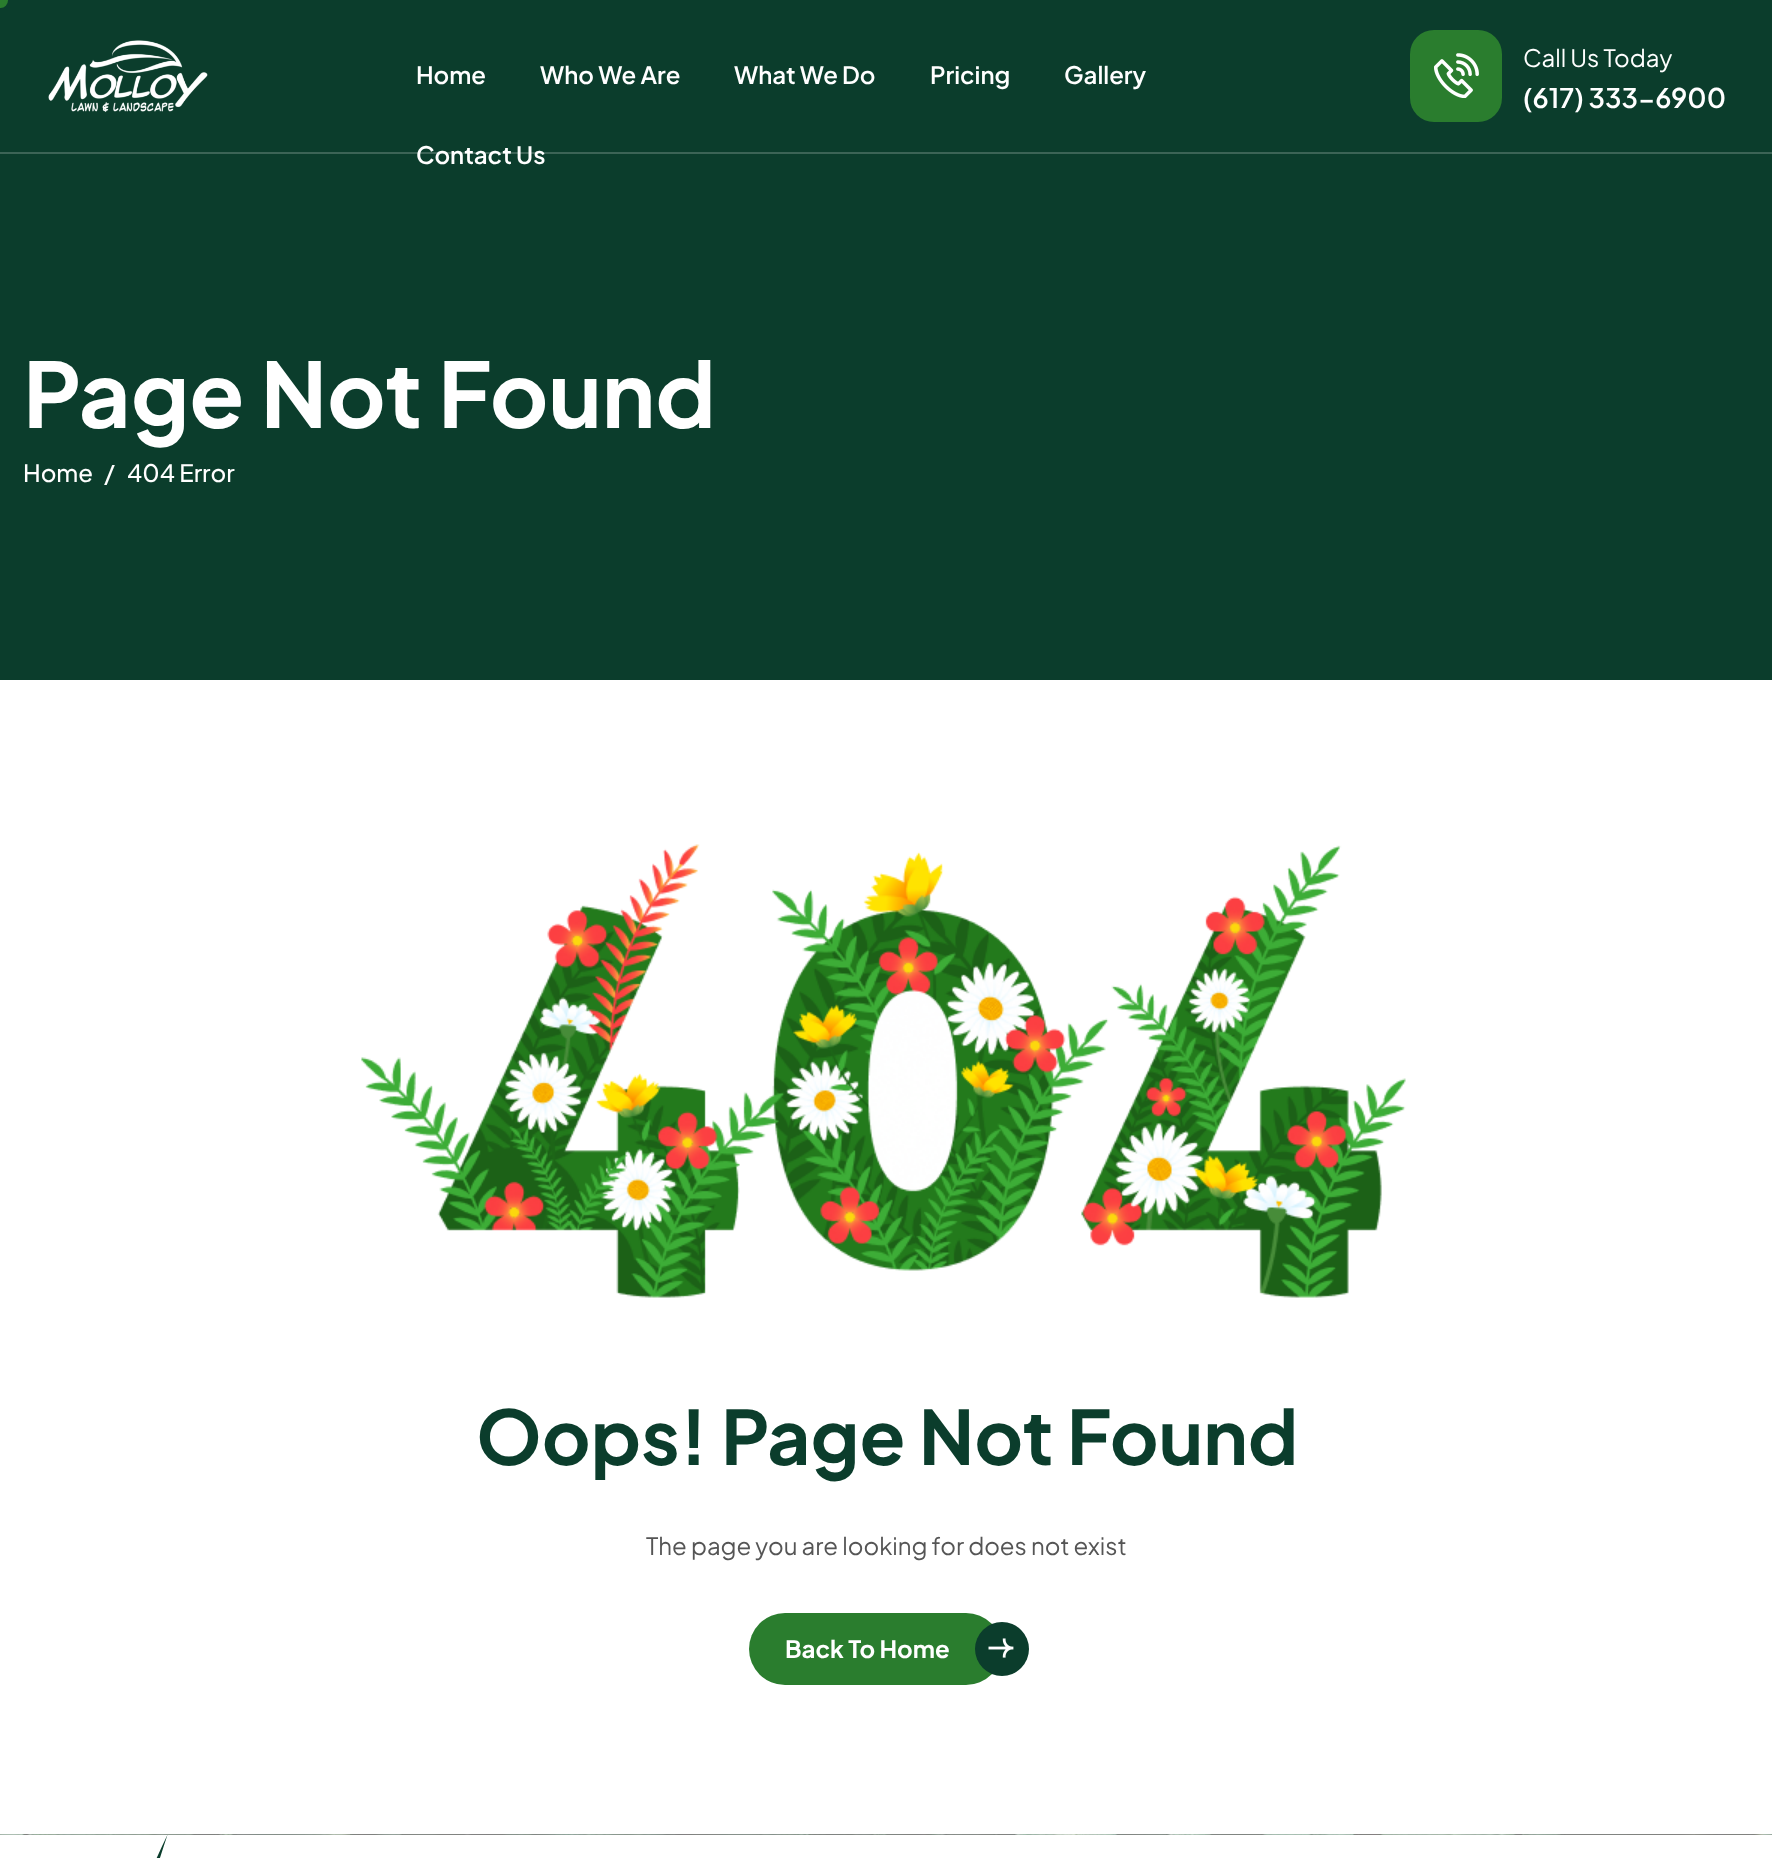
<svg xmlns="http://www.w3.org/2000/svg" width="1772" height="1858">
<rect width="100%" height="100%" fill="#fff"/>
<rect width="1772" height="680" fill="#0b3d2c"/>
<circle cx="0.5" cy="0.5" r="7.5" fill="#2a7d2e"/>
<rect y="152" width="1772" height="2" fill="#3c6456"/>
<image x="48" y="40" width="160" height="73" href="media/1.png"/>
<text x="416" y="84" style="font-family:Plus Jakarta Sans;font-size:24px;font-weight:600;fill:#fff">Home</text>
<text x="540" y="84" style="font-family:Plus Jakarta Sans;font-size:24px;font-weight:600;fill:#fff">Who We Are</text>
<text x="734" y="84" style="font-family:Plus Jakarta Sans;font-size:24px;font-weight:600;fill:#fff">What We Do</text>
<text x="930" y="84" style="font-family:Plus Jakarta Sans;font-size:24px;font-weight:600;fill:#fff">Pricing</text>
<text x="1064" y="84" style="font-family:Plus Jakarta Sans;font-size:24px;font-weight:600;fill:#fff">Gallery</text>
<text x="416" y="164" style="font-family:Plus Jakarta Sans;font-size:24px;font-weight:600;fill:#fff">Contact Us</text>
<rect x="1410" y="30" width="92" height="92" rx="24" fill="#2a7d2e"/>
<image x="1434" y="53" width="45" height="45" href="media/2.png"/>
<text x="1523" y="67" style="font-family:Plus Jakarta Sans;font-size:24px;fill:#fff">Call Us Today</text>
<text x="1523" y="108" style="font-family:Plus Jakarta Sans;font-size:27px;font-weight:600;fill:#fff">(617) 333-6900</text>
<text x="23" y="428" style="font-family:Plus Jakarta Sans;font-size:90px;font-weight:bold;fill:#fff">Page Not Found</text>
<text x="23" y="482" style="font-family:Plus Jakarta Sans;font-size:24px;font-weight:500;fill:#fff">Home</text>
<text x="104" y="482" style="font-family:Plus Jakarta Sans;font-size:24px;font-weight:500;fill:#fff">/</text>
<text x="127" y="482" style="font-family:Plus Jakarta Sans;font-size:24px;font-weight:500;fill:#fff">404 Error</text>
<image x="361" y="844" width="1045" height="454" href="media/3.png"/>
<text x="476" y="1465" style="font-family:Plus Jakarta Sans;font-size:75px;font-weight:bold;fill:#0b3d2c">Oops! Page Not Found</text>
<text x="646" y="1555" style="font-family:Plus Jakarta Sans;font-size:24px;fill:#555">The page you are looking for does not exist</text>
<rect x="749" y="1613" width="253" height="72" rx="36" fill="#2a7d2e"/>
<text x="785" y="1658" style="font-family:Plus Jakarta Sans;font-size:24px;font-weight:bold;fill:#fff">Back To Home</text>
<circle cx="1002" cy="1649" r="27" fill="#0b3d2c"/>
<image x="988" y="1638" width="26" height="20" href="media/4.png"/>
<image x="0" y="1834" width="1772" height="24" href="media/5.png"/>
<image x="0" y="1835" width="1772" height="23" href="media/6.png"/>
</svg>
